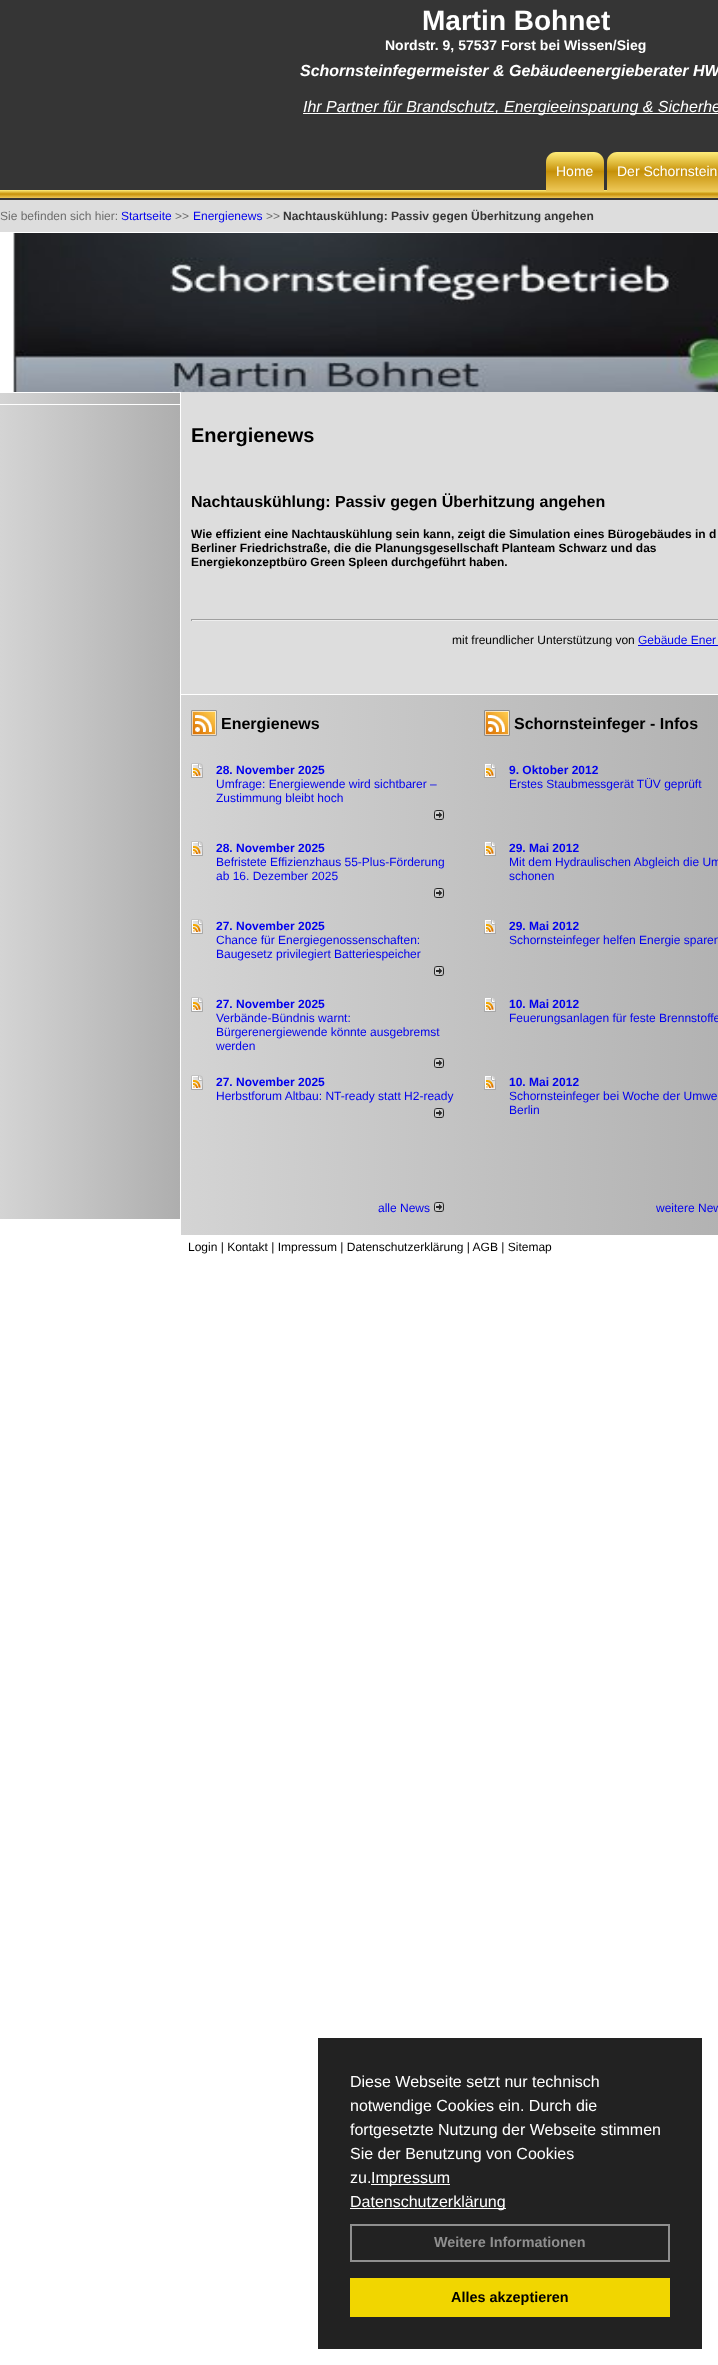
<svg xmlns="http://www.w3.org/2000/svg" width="718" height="2365">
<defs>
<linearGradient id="g1" gradientUnits="userSpaceOnUse" x1="359" y1="190" x2="359" y2="198"><stop offset="0" stop-color="#ffed7a"/><stop offset="0.5" stop-color="#c69109"/><stop offset="1" stop-color="#edc757"/></linearGradient>
<linearGradient id="g2" gradientUnits="userSpaceOnUse" x1="575" y1="152" x2="575" y2="191"><stop offset="0" stop-color="#ffed7a"/><stop offset="0.5" stop-color="#c69109"/><stop offset="1" stop-color="#edc757"/></linearGradient>
<linearGradient id="g3" gradientUnits="userSpaceOnUse" x1="683" y1="152" x2="683" y2="191"><stop offset="0" stop-color="#ffed7a"/><stop offset="0.5" stop-color="#c69109"/><stop offset="1" stop-color="#edc757"/></linearGradient>
<linearGradient id="g4" gradientUnits="userSpaceOnUse" x1="0" y1="399" x2="180" y2="399"><stop offset="0" stop-color="#d4d4d4"/><stop offset="1" stop-color="#aeaeae"/></linearGradient>
<linearGradient id="g5" gradientUnits="userSpaceOnUse" x1="0" y1="812" x2="180" y2="812"><stop offset="0" stop-color="#d4d4d4"/><stop offset="1" stop-color="#aeaeae"/></linearGradient>
<linearGradient id="g6" gradientUnits="userSpaceOnUse" x1="181" y1="965" x2="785" y2="965"><stop offset="0" stop-color="#d4d4d4"/><stop offset="1" stop-color="#aeaeae"/></linearGradient>
</defs>
<rect width="100%" height="100%" fill="#fff"/>
<rect width="718" height="200" fill="#353535"/>
<text x="422" y="30" style="font-family:Liberation Sans;font-size:28px;font-weight:bold;fill:#fff">Martin Bohnet</text>
<text x="385" y="50" style="font-family:Liberation Sans;font-size:14px;font-weight:bold;fill:#fff">Nordstr. 9, 57537 Forst bei Wissen/Sieg</text>
<text x="300" y="76" style="font-family:Liberation Sans;font-size:16px;font-weight:bold;font-style:italic;fill:#fff">Schornsteinfegermeister &amp; Gebäudeenergieberater HW</text>
<rect x="303" y="113" width="415" height="1" fill="#fff"/>
<text x="303" y="112" style="font-family:Liberation Sans;font-size:16px;font-style:italic;fill:#fff">Ihr Partner für Brandschutz, Energieeinsparung &amp; Sicherhe</text>
<rect y="190" width="718" height="8" fill="url(#g1)"/>
<path d="M556 152h38c5.5 0 10 4.5 10 10v29h-58v-29c0-5.5 4.5-10 10-10z" fill="url(#g2)"/>
<text x="556" y="176" style="font-family:Liberation Sans;font-size:14px;fill:#fff">Home</text>
<path d="M617 152h101c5.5 0 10 4.5 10 10v29h-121v-29c0-5.5 4.5-10 10-10z" fill="url(#g3)"/>
<text x="617" y="176" style="font-family:Liberation Sans;font-size:14px;fill:#fff">Der Schornstein</text>
<rect y="200" width="718" height="32" fill="#ddd"/>
<text x="0" y="220" style="font-family:Liberation Sans;font-size:12px;fill:#6d6d6d">Sie befinden sich hier:</text>
<text x="121" y="220" style="font-family:Liberation Sans;font-size:12px;fill:#00e">Startseite</text>
<text x="175" y="220" style="font-family:Liberation Sans;font-size:12px;fill:#6d6d6d">&gt;&gt;</text>
<text x="193" y="220" style="font-family:Liberation Sans;font-size:12px;fill:#00e">Energienews</text>
<text x="266" y="220" style="font-family:Liberation Sans;font-size:12px;fill:#6d6d6d">&gt;&gt;</text>
<text x="283" y="220" style="font-family:Liberation Sans;font-size:12px;font-weight:bold;fill:#353535">Nachtauskühlung: Passiv gegen Überhitzung angehen</text>
<image x="13" y="233" width="705" height="159" href="media/1.png"/>
<rect y="393" width="180" height="11" fill="url(#g4)"/>
<rect y="405" width="180" height="814" fill="url(#g5)"/>
<rect x="181" y="392" width="537" height="302" fill="#ddd"/>
<text x="191" y="442" style="font-family:Liberation Sans;font-size:20px;font-weight:bold;fill:#000">Energienews</text>
<text x="191" y="507" style="font-family:Liberation Sans;font-size:16px;font-weight:bold;fill:#000">Nachtauskühlung: Passiv gegen Überhitzung angehen</text>
<text x="191" y="538" style="font-family:Liberation Sans;font-size:12px;font-weight:bold;fill:#000">Wie effizient eine Nachtauskühlung sein kann, zeigt die Simulation eines Bürogebäudes in d</text>
<text x="191" y="552" style="font-family:Liberation Sans;font-size:12px;font-weight:bold;fill:#000">Berliner Friedrichstraße, die die Planungsgesellschaft Planteam Schwarz und das</text>
<text x="191" y="566" style="font-family:Liberation Sans;font-size:12px;font-weight:bold;fill:#000">Energiekonzeptbüro Green Spleen durchgeführt haben.</text>
<rect x="191" y="619" width="527" height="1" fill="#9f9f9f"/>
<rect x="191" y="620" width="527" height="1" fill="#eee"/>
<rect x="191" y="619" width="1" height="2" fill="#9f9f9f"/>
<text x="452" y="644" style="font-family:Liberation Sans;font-size:12px;fill:#000">mit freundlicher Unterstützung von</text>
<text x="638" y="644" style="font-family:Liberation Sans;font-size:12px;fill:#00e">Gebäude Ener</text>
<rect x="638" y="645" width="80" height="1" fill="#00e"/>
<rect x="181" y="695" width="537" height="540" fill="url(#g6)"/>
<image x="191" y="710" width="26" height="26" href="media/2.png"/>
<text x="221" y="729" style="font-family:Liberation Sans;font-size:16px;font-weight:bold;fill:#000">Energienews</text>
<image x="191" y="763" width="12" height="15" href="media/3.png"/>
<text x="216" y="774" style="font-family:Liberation Sans;font-size:12px;font-weight:bold;fill:#00e">28. November 2025</text>
<text x="216" y="788" style="font-family:Liberation Sans;font-size:12px;fill:#00e">Umfrage: Energiewende wird sichtbarer –</text>
<text x="216" y="802" style="font-family:Liberation Sans;font-size:12px;fill:#00e">Zustimmung bleibt hoch</text>
<image x="434" y="810" width="10" height="10" href="media/4.png"/>
<image x="191" y="841" width="12" height="15" href="media/3.png"/>
<text x="216" y="852" style="font-family:Liberation Sans;font-size:12px;font-weight:bold;fill:#00e">28. November 2025</text>
<text x="216" y="866" style="font-family:Liberation Sans;font-size:12px;fill:#00e">Befristete Effizienzhaus 55-Plus-Förderung</text>
<text x="216" y="880" style="font-family:Liberation Sans;font-size:12px;fill:#00e">ab 16. Dezember 2025</text>
<image x="434" y="888" width="10" height="10" href="media/4.png"/>
<image x="191" y="919" width="12" height="15" href="media/3.png"/>
<text x="216" y="930" style="font-family:Liberation Sans;font-size:12px;font-weight:bold;fill:#00e">27. November 2025</text>
<text x="216" y="944" style="font-family:Liberation Sans;font-size:12px;fill:#00e">Chance für Energiegenossenschaften:</text>
<text x="216" y="958" style="font-family:Liberation Sans;font-size:12px;fill:#00e">Baugesetz privilegiert Batteriespeicher</text>
<image x="434" y="966" width="10" height="10" href="media/4.png"/>
<image x="191" y="997" width="12" height="15" href="media/3.png"/>
<text x="216" y="1008" style="font-family:Liberation Sans;font-size:12px;font-weight:bold;fill:#00e">27. November 2025</text>
<text x="216" y="1022" style="font-family:Liberation Sans;font-size:12px;fill:#00e">Verbände-Bündnis warnt:</text>
<text x="216" y="1036" style="font-family:Liberation Sans;font-size:12px;fill:#00e">Bürgerenergiewende könnte ausgebremst</text>
<text x="216" y="1050" style="font-family:Liberation Sans;font-size:12px;fill:#00e">werden</text>
<image x="434" y="1058" width="10" height="10" href="media/4.png"/>
<image x="191" y="1075" width="12" height="15" href="media/3.png"/>
<text x="216" y="1086" style="font-family:Liberation Sans;font-size:12px;font-weight:bold;fill:#00e">27. November 2025</text>
<text x="216" y="1100" style="font-family:Liberation Sans;font-size:12px;fill:#00e">Herbstforum Altbau: NT-ready statt H2-ready</text>
<image x="434" y="1108" width="10" height="10" href="media/4.png"/>
<text x="378" y="1212" style="font-family:Liberation Sans;font-size:12px;fill:#00e">alle News</text>
<image x="434" y="1202" width="10" height="10" href="media/4.png"/>
<image x="484" y="710" width="26" height="26" href="media/5.png"/>
<text x="514" y="729" style="font-family:Liberation Sans;font-size:16px;font-weight:bold;fill:#000">Schornsteinfeger - Infos</text>
<image x="484" y="764" width="12" height="14" href="media/6.png"/>
<text x="509" y="774" style="font-family:Liberation Sans;font-size:12px;font-weight:bold;fill:#00e">9. Oktober 2012</text>
<text x="509" y="788" style="font-family:Liberation Sans;font-size:12px;fill:#00e">Erstes Staubmessgerät TÜV geprüft</text>
<image x="484" y="842" width="12" height="14" href="media/6.png"/>
<text x="509" y="852" style="font-family:Liberation Sans;font-size:12px;font-weight:bold;fill:#00e">29. Mai 2012</text>
<text x="509" y="866" style="font-family:Liberation Sans;font-size:12px;fill:#00e">Mit dem Hydraulischen Abgleich die Um</text>
<text x="509" y="880" style="font-family:Liberation Sans;font-size:12px;fill:#00e">schonen</text>
<image x="484" y="920" width="12" height="14" href="media/6.png"/>
<text x="509" y="930" style="font-family:Liberation Sans;font-size:12px;font-weight:bold;fill:#00e">29. Mai 2012</text>
<text x="509" y="944" style="font-family:Liberation Sans;font-size:12px;fill:#00e">Schornsteinfeger helfen Energie sparen</text>
<image x="484" y="998" width="12" height="14" href="media/6.png"/>
<text x="509" y="1008" style="font-family:Liberation Sans;font-size:12px;font-weight:bold;fill:#00e">10. Mai 2012</text>
<text x="509" y="1022" style="font-family:Liberation Sans;font-size:12px;fill:#00e">Feuerungsanlagen für feste Brennstoffe</text>
<image x="484" y="1076" width="12" height="14" href="media/6.png"/>
<text x="509" y="1086" style="font-family:Liberation Sans;font-size:12px;font-weight:bold;fill:#00e">10. Mai 2012</text>
<text x="509" y="1100" style="font-family:Liberation Sans;font-size:12px;fill:#00e">Schornsteinfeger bei Woche der Umwe</text>
<text x="509" y="1114" style="font-family:Liberation Sans;font-size:12px;fill:#00e">Berlin</text>
<text x="656" y="1212" style="font-family:Liberation Sans;font-size:12px;fill:#00e">weitere New</text>
<text x="188" y="1251" style="font-family:Liberation Sans;font-size:12px;fill:#000">Login | Kontakt | Impressum | Datenschutzerklärung | AGB | Sitemap</text>
<rect x="318" y="2038" width="384" height="311" fill="#222"/>
<text x="350" y="2087" style="font-family:Liberation Sans;font-size:16px;fill:#fff">Diese Webseite setzt nur technisch</text>
<text x="350" y="2111" style="font-family:Liberation Sans;font-size:16px;fill:#fff">notwendige Cookies ein. Durch die</text>
<text x="350" y="2135" style="font-family:Liberation Sans;font-size:16px;fill:#fff">fortgesetzte Nutzung der Webseite stimmen</text>
<text x="350" y="2159" style="font-family:Liberation Sans;font-size:16px;fill:#fff">Sie der Benutzung von Cookies</text>
<text x="350" y="2183" style="font-family:Liberation Sans;font-size:16px;fill:#fff">zu.</text>
<rect x="371" y="2184" width="79" height="1" fill="#fff"/>
<text x="371" y="2183" style="font-family:Liberation Sans;font-size:16px;fill:#fff">Impressum</text>
<rect x="350" y="2208" width="156" height="1" fill="#fff"/>
<text x="350" y="2207" style="font-family:Liberation Sans;font-size:16px;fill:#fff">Datenschutzerklärung</text>
<rect x="351" y="2225" width="318" height="36" fill="none" stroke="#8f8f8f" stroke-width="2"/>
<text x="434" y="2247" style="font-family:Liberation Sans;font-size:14.4px;font-weight:bold;fill:#8f8f8f">Weitere Informationen</text>
<rect x="350" y="2278" width="320" height="39" fill="#f1d600"/>
<text x="451" y="2302" style="font-family:Liberation Sans;font-size:14.4px;font-weight:bold;fill:#000">Alles akzeptieren</text>
</svg>
